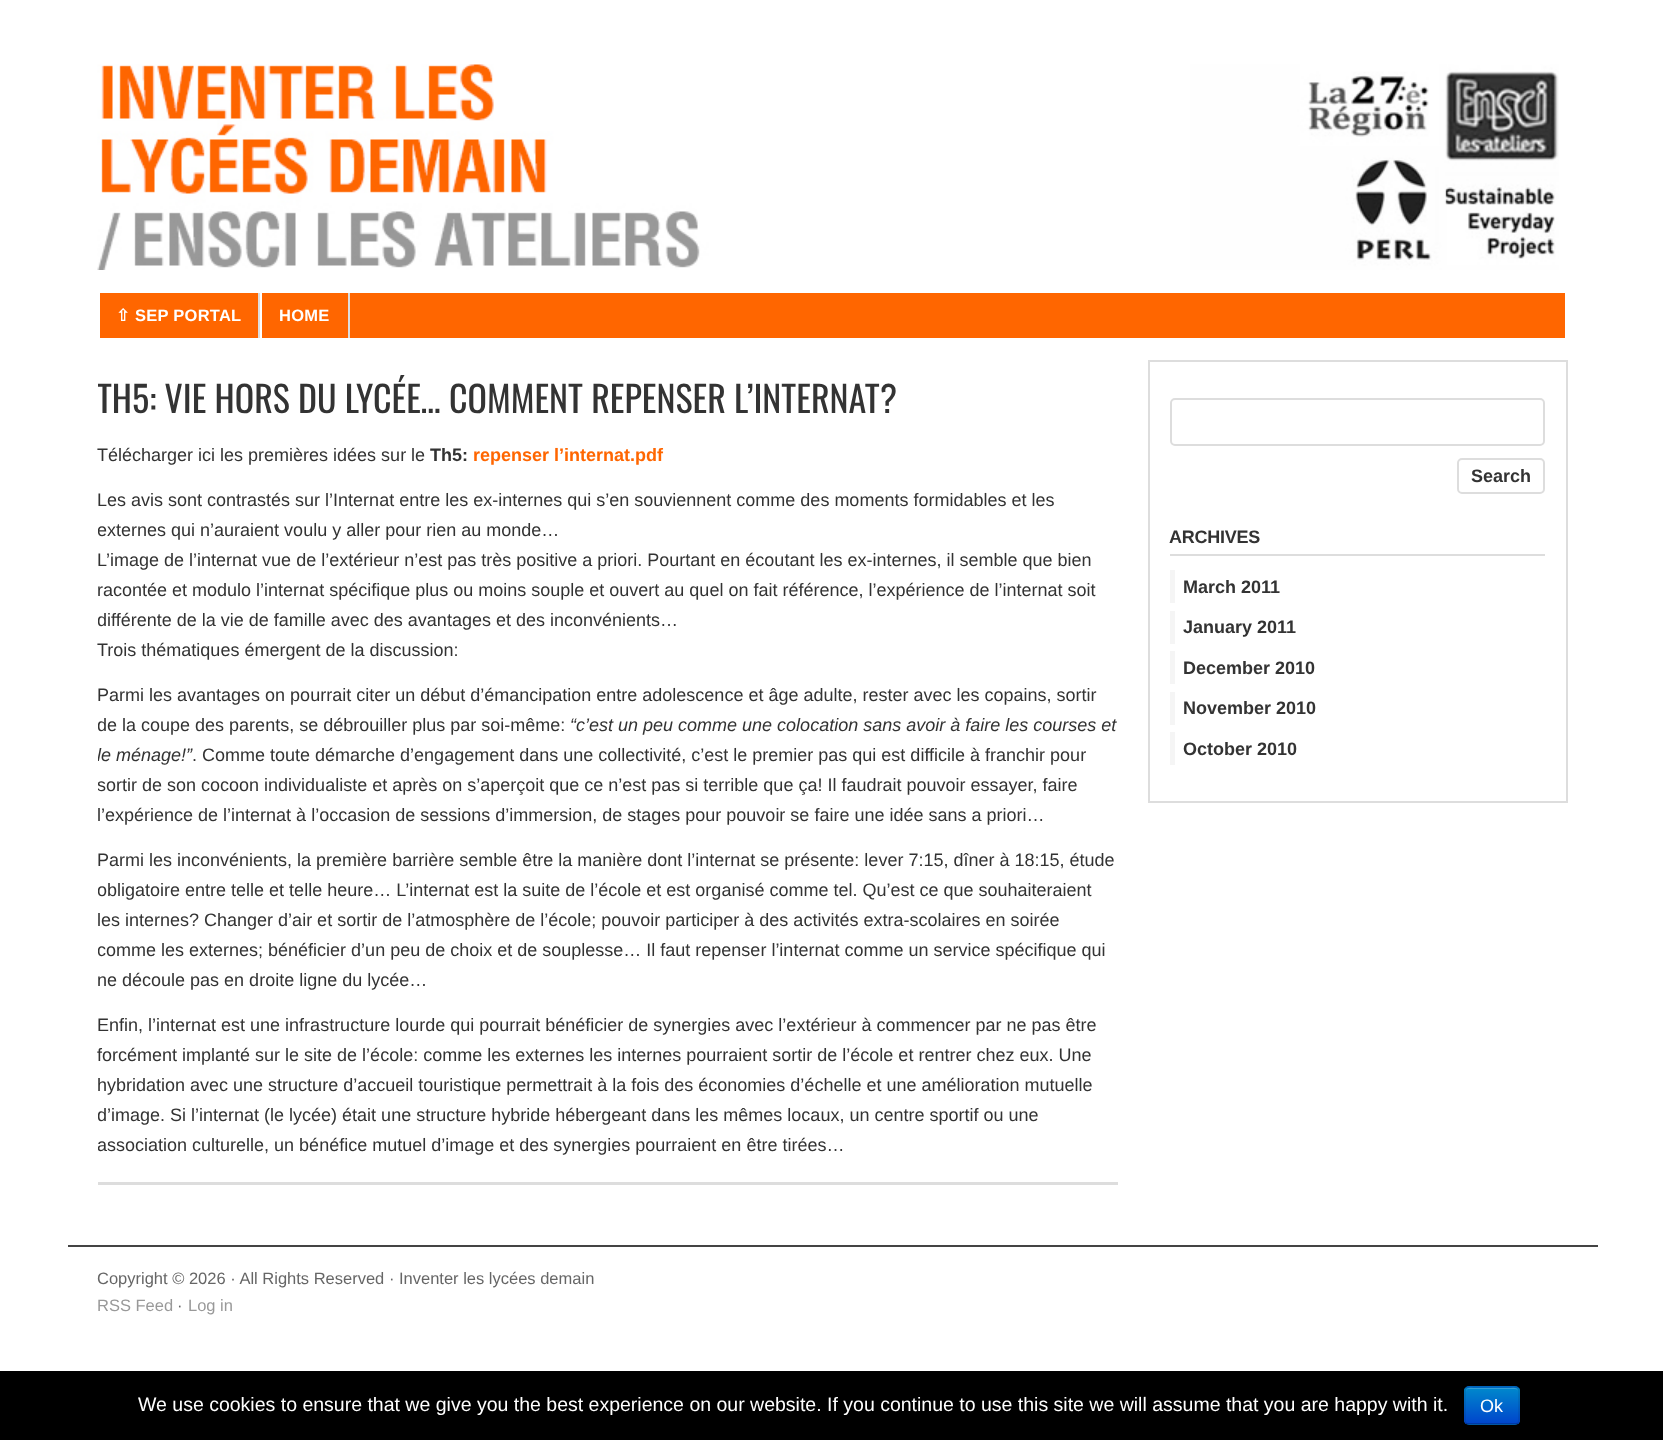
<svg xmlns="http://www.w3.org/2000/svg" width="1663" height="1440">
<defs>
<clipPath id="clip1"><rect x="98" y="360" width="1470" height="885"/></clipPath>
<clipPath id="clip2"><rect x="1464" y="1386" width="56" height="39" rx="5"/></clipPath>
<linearGradient id="g1" gradientUnits="userSpaceOnUse" x1="1492" y1="1388" x2="1492" y2="1424"><stop offset="0" stop-color="#08c"/><stop offset="1" stop-color="#04c"/></linearGradient>
</defs>
<rect width="100%" height="100%" fill="#fff"/>
<image x="97" y="64" width="1462" height="206" href="media/1.png"/>
<rect x="100" y="293" width="1465" height="45" fill="#f60"/>
<rect x="258" y="293" width="2" height="45" fill="#ddd"/>
<text x="116" y="321" style="font-family:DejaVu Sans;font-size:16.5px;font-weight:bold;letter-spacing:0.25px;fill:#fff">⇧</text>
<text x="135" y="321" style="font-family:Liberation Sans;font-size:16.5px;font-weight:bold;letter-spacing:0.25px;fill:#fff">SEP PORTAL</text>
<rect x="348" y="293" width="2" height="45" fill="#ddd"/>
<rect x="260" y="293" width="2" height="45" fill="#fff"/>
<text x="279" y="321" style="font-family:Liberation Sans;font-size:16.5px;font-weight:bold;letter-spacing:0.25px;fill:#fff">HOME</text>
<g clip-path="url(#clip1)">
<text x="97" y="413" style="font-family:Oswald;font-size:36px;fill:#333">TH5: VIE HORS DU LYCÉE… COMMENT REPENSER L’INTERNAT?</text>
</g>
<text x="97" y="461" style="font-family:Liberation Sans;font-size:18px;fill:#333">Télécharger ici les premières idées sur le</text>
<text x="430" y="461" style="font-family:Liberation Sans;font-size:18px;font-weight:bold;fill:#333">Th5:</text>
<text x="473" y="461" style="font-family:Liberation Sans;font-size:18px;font-weight:bold;fill:#f60">repenser l’internat.pdf</text>
<text x="97" y="506" style="font-family:Liberation Sans;font-size:18px;fill:#333">Les avis sont contrastés sur l’Internat entre les ex-internes qui s’en souviennent comme des moments formidables et les</text>
<g clip-path="url(#clip1)">
<text x="97" y="536" style="font-family:Liberation Sans;font-size:18px;fill:#333">externes qui n’auraient voulu y aller pour rien au monde…</text>
</g>
<text x="97" y="566" style="font-family:Liberation Sans;font-size:18px;fill:#333">L’image de l’internat vue de l’extérieur n’est pas très positive a priori. Pourtant en écoutant les ex-internes, il semble que bien</text>
<text x="97" y="596" style="font-family:Liberation Sans;font-size:18px;fill:#333">racontée et modulo l’internat spécifique plus ou moins souple et ouvert au quel on fait référence, l’expérience de l’internat soit</text>
<g clip-path="url(#clip1)">
<text x="97" y="626" style="font-family:Liberation Sans;font-size:18px;fill:#333">différente de la vie de famille avec des avantages et des inconvénients…</text>
</g>
<text x="97" y="656" style="font-family:Liberation Sans;font-size:18px;fill:#333">Trois thématiques émergent de la discussion:</text>
<text x="97" y="701" style="font-family:Liberation Sans;font-size:18px;fill:#333">Parmi les avantages on pourrait citer un début d’émancipation entre adolescence et âge adulte, rester avec les copains, sortir</text>
<g clip-path="url(#clip1)">
<text x="97" y="731" style="font-family:Liberation Sans;font-size:18px;fill:#333">de la coupe des parents, se débrouiller plus par soi-même:</text>
</g>
<text x="570" y="731" style="font-family:Liberation Sans;font-size:18px;font-style:italic;fill:#333">“c’est un peu comme une colocation sans avoir à faire les courses et</text>
<g clip-path="url(#clip1)">
<text x="97" y="761" style="font-family:Liberation Sans;font-size:18px;font-style:italic;fill:#333">le ménage!”</text>
</g>
<text x="192" y="761" style="font-family:Liberation Sans;font-size:18px;fill:#333">. Comme toute démarche d’engagement dans une collectivité, c’est le premier pas qui est difficile à franchir pour</text>
<g clip-path="url(#clip1)">
<text x="97" y="791" style="font-family:Liberation Sans;font-size:18px;fill:#333">sortir de son cocoon individualiste et après on s’aperçoit que ce n’est pas si terrible que ça! Il faudrait pouvoir essayer, faire</text>
</g>
<text x="97" y="821" style="font-family:Liberation Sans;font-size:18px;fill:#333">l’expérience de l’internat à l’occasion de sessions d’immersion, de stages pour pouvoir se faire une idée sans a priori…</text>
<text x="97" y="866" style="font-family:Liberation Sans;font-size:18px;fill:#333">Parmi les inconvénients, la première barrière semble être la manière dont l’internat se présente: lever 7:15, dîner à 18:15, étude</text>
<g clip-path="url(#clip1)">
<text x="97" y="896" style="font-family:Liberation Sans;font-size:18px;fill:#333">obligatoire entre telle et telle heure… L’internat est la suite de l’école et est organisé comme tel. Qu’est ce que souhaiteraient</text>
</g>
<text x="97" y="926" style="font-family:Liberation Sans;font-size:18px;fill:#333">les internes? Changer d’air et sortir de l’atmosphère de l’école; pouvoir participer à des activités extra-scolaires en soirée</text>
<g clip-path="url(#clip1)">
<text x="97" y="956" style="font-family:Liberation Sans;font-size:18px;fill:#333">comme les externes; bénéficier d’un peu de choix et de souplesse… Il faut repenser l’internat comme un service spécifique qui</text>
</g>
<text x="97" y="986" style="font-family:Liberation Sans;font-size:18px;fill:#333">ne découle pas en droite ligne du lycée…</text>
<text x="97" y="1031" style="font-family:Liberation Sans;font-size:18px;fill:#333">Enfin, l’internat est une infrastructure lourde qui pourrait bénéficier de synergies avec l’extérieur à commencer par ne pas être</text>
<text x="97" y="1061" style="font-family:Liberation Sans;font-size:18px;fill:#333">forcément implanté sur le site de l’école: comme les externes les internes pourraient sortir de l’école et rentrer chez eux. Une</text>
<text x="97" y="1091" style="font-family:Liberation Sans;font-size:18px;fill:#333">hybridation avec une structure d’accueil touristique permettrait à la fois des économies d’échelle et une amélioration mutuelle</text>
<g clip-path="url(#clip1)">
<text x="97" y="1121" style="font-family:Liberation Sans;font-size:18px;fill:#333">d’image. Si l’internat (le lycée) était une structure hybride hébergeant dans les mêmes locaux, un centre sportif ou une</text>
<text x="97" y="1151" style="font-family:Liberation Sans;font-size:18px;fill:#333">association culturelle, un bénéfice mutuel d’image et des synergies pourraient en être tirées…</text>
</g>
<rect x="98" y="1182" width="1020" height="3" fill="#ddd"/>
<rect x="1149" y="361" width="418" height="441" fill="none" stroke="#ddd" stroke-width="2"/>
<rect x="1171" y="399" width="373" height="46" rx="4" fill="none" stroke="#ddd" stroke-width="2"/>
<rect x="1458" y="459" width="86" height="34" rx="4" fill="none" stroke="#ddd" stroke-width="2"/>
<text x="1471" y="482" style="font-family:Liberation Sans;font-size:18px;font-weight:bold;fill:#333">Search</text>
<rect x="1170" y="554" width="375" height="2" fill="#ddd"/>
<text x="1169" y="543" style="font-family:Liberation Sans;font-size:18px;font-weight:bold;letter-spacing:-0.25px;fill:#333">ARCHIVES</text>
<rect x="1170" y="570" width="5" height="33" fill="#f5f5f5"/>
<text x="1183" y="593" style="font-family:Liberation Sans;font-size:18px;font-weight:bold;fill:#333">March 2011</text>
<rect x="1170" y="611" width="5" height="33" fill="#f5f5f5"/>
<text x="1183" y="633" style="font-family:Liberation Sans;font-size:18px;font-weight:bold;fill:#333">January 2011</text>
<rect x="1170" y="651" width="5" height="33" fill="#f5f5f5"/>
<text x="1183" y="674" style="font-family:Liberation Sans;font-size:18px;font-weight:bold;fill:#333">December 2010</text>
<rect x="1170" y="692" width="5" height="33" fill="#f5f5f5"/>
<text x="1183" y="714" style="font-family:Liberation Sans;font-size:18px;font-weight:bold;fill:#333">November 2010</text>
<rect x="1170" y="732" width="5" height="33" fill="#f5f5f5"/>
<text x="1183" y="755" style="font-family:Liberation Sans;font-size:18px;font-weight:bold;fill:#333">October 2010</text>
<rect x="68" y="1245" width="1530" height="2" fill="#444"/>
<text x="97" y="1284" style="font-family:Liberation Sans;font-size:16.5px;fill:#666">Copyright © 2026 · All Rights Reserved · Inventer les lycées demain</text>
<text x="97" y="1311" style="font-family:Liberation Sans;font-size:16.5px;fill:#999">RSS Feed</text>
<text x="177" y="1311" style="font-family:Liberation Sans;font-size:16.5px;fill:#666">·</text>
<text x="188" y="1311" style="font-family:Liberation Sans;font-size:16.5px;fill:#999">Log in</text>
<rect y="1371" width="1663" height="69" fill="#000"/>
<text x="138" y="1411" style="font-family:Liberation Sans;font-size:19.5px;fill:#fff">We use cookies to ensure that we give you the best experience on our website. If you continue to use this site we will assume that you are happy with it.</text>
<rect x="1464" y="1386" width="56" height="39" rx="5" fill="#006dcc"/>
<g clip-path="url(#clip2)">
<rect x="1464" y="1388" width="56" height="36" fill="url(#g1)"/>
</g>
<path d="M1468 1389h47c2 0 3 1 3 3c0-6-6-4-11-4h-30c-5 0-11-2-11 4c0-2 1-3 2-3z" fill="#339fd6"/>
<path d="M1517.5 1423c-.5 1-1.5 1-2.5 1h-46.5c-1 0-2 0-2.5-1" fill="none" stroke="#00000040" stroke-width="1.5"/>
<path d="M1466 1423c-1-.5-1-1.5-1-2.5v-30c0-1 0-2 1-2.5c.5-1 1.5-1 2.5-1h46.5c1 0 2 0 2.5 1c1 .5 1.5 1.5 1.5 2.5v30c0 1-.5 2-1.5 2.5" fill="none" stroke="#0000001a" stroke-width="1.5"/>
<text x="1480" y="1412" style="font-family:Liberation Sans;font-size:18px;fill:#fff">Ok</text>
</svg>
